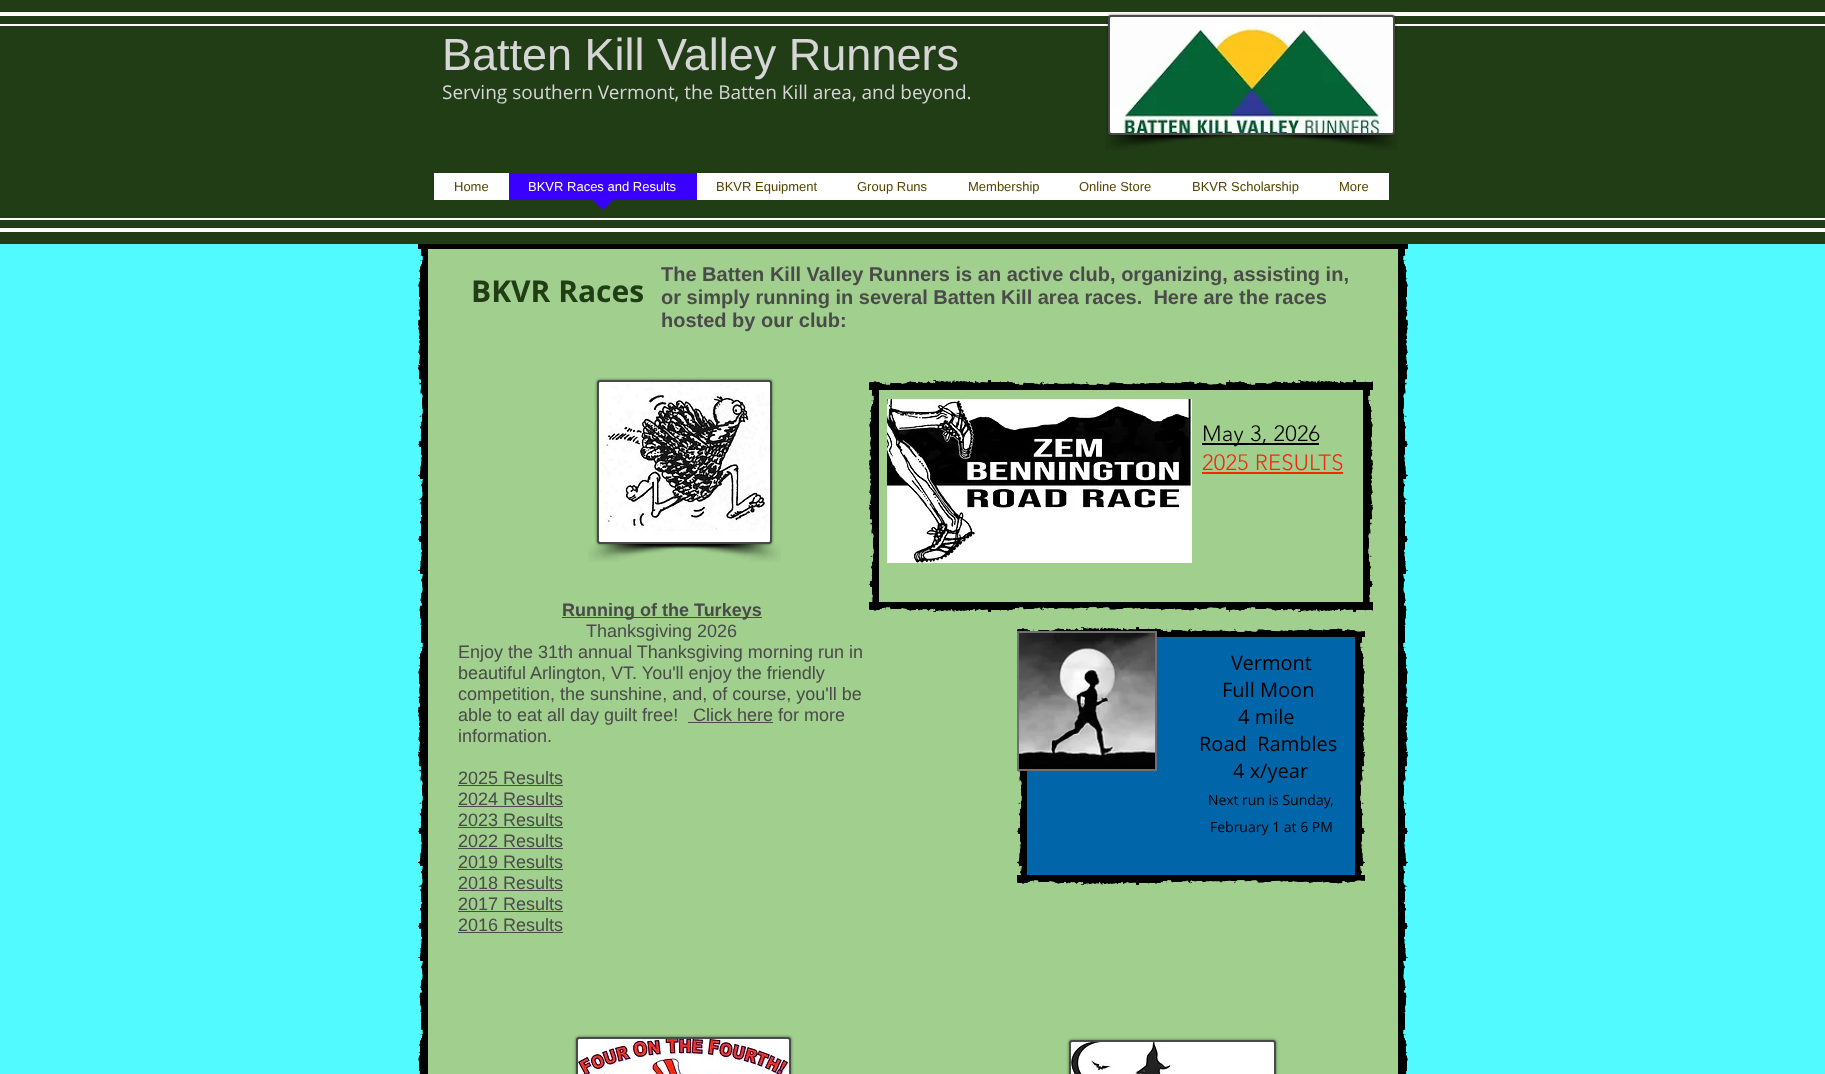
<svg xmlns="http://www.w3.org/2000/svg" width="1825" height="1074">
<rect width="100%" height="100%" fill="#50fafe"/>
<rect width="1825" height="244" fill="#213d16"/>
<rect y="12" width="1825" height="4" fill="#fff"/>
<rect y="228" width="1825" height="4" fill="#fff"/>
<rect y="24" width="1825" height="2" fill="#fff"/>
<rect y="218" width="1825" height="2" fill="#fff"/>
<text x="442" y="70" style="font-family:Liberation Sans;font-size:45px;fill:#d6d6d6">Batten Kill Valley Runners</text>
<rect x="1108" y="15" width="287" height="120" rx="3" fill="#00000080" filter="blur(1.5px)"/>
<rect x="1109" y="16" width="285" height="118" rx="2" fill="#4a4a4a" stroke="#4a4a4a" stroke-width="2"/>
<image x="1110" y="17" width="283" height="116" href="media/1.png"/>
<image x="1105" y="135" width="130" height="15" href="media/2.png"/>
<image x="1268" y="135" width="130" height="15" href="media/3.png"/>
<text x="442" y="99" style="font-family:Open Sans;font-size:19px;fill:#d6d6d6">Serving southern Vermont, the Batten Kill area, and beyond.</text>
<rect x="434" y="173" width="955" height="27" fill="#fff"/>
<text x="454" y="191" style="font-family:Liberation Sans;font-size:13px;fill:#544300">Home</text>
<rect x="509" y="173" width="188" height="27" fill="#3a00ff"/>
<text x="528" y="191" style="font-family:Liberation Sans;font-size:13px;fill:#fff">BKVR Races and Results</text>
<path d="M593 200h20l-10 10z" fill="#3a00ff"/>
<text x="716" y="191" style="font-family:Liberation Sans;font-size:13px;fill:#544300">BKVR Equipment</text>
<text x="857" y="191" style="font-family:Liberation Sans;font-size:13px;fill:#544300">Group Runs</text>
<text x="968" y="191" style="font-family:Liberation Sans;font-size:13px;fill:#544300">Membership</text>
<text x="1079" y="191" style="font-family:Liberation Sans;font-size:13px;fill:#544300">Online Store</text>
<text x="1192" y="191" style="font-family:Liberation Sans;font-size:13px;fill:#544300">BKVR Scholarship</text>
<text x="1339" y="191" style="font-family:Liberation Sans;font-size:13px;fill:#544300">More</text>
<rect x="428" y="249" width="970" height="825" fill="#a0cf8e"/>
<image x="418" y="244" width="990" height="5" href="media/4.png"/>
<image x="418" y="249" width="10" height="825" href="media/5.png"/>
<image x="1398" y="249" width="10" height="825" href="media/6.png"/>
<text x="471" y="302" style="font-family:Open Sans;font-size:30px;font-weight:bold;fill:#213d16">BKVR Races</text>
<text x="661" y="281" style="font-family:Liberation Sans;font-size:20px;font-weight:bold;fill:#4a4a4a">The Batten Kill Valley Runners is an active club, organizing, assisting in,</text>
<text x="661" y="304" style="font-family:Liberation Sans;font-size:20px;font-weight:bold;fill:#4a4a4a" xml:space="preserve">or simply running in several Batten Kill area races.  Here are the races</text>
<text x="661" y="327" style="font-family:Liberation Sans;font-size:20px;font-weight:bold;fill:#4a4a4a">hosted by our club:</text>
<rect x="597" y="380" width="175" height="164" rx="3" fill="#00000080" filter="blur(1.5px)"/>
<rect x="598" y="381" width="173" height="162" rx="2" fill="#4a4a4a" stroke="#4a4a4a" stroke-width="2"/>
<image x="599" y="382" width="171" height="160" href="media/7.png"/>
<image x="588" y="544" width="149" height="18" href="media/8.png"/>
<image x="657" y="544" width="124" height="18" href="media/9.png"/>
<image x="869" y="380" width="504" height="10" href="media/10.png"/>
<image x="869" y="602" width="504" height="10" href="media/11.png"/>
<image x="869" y="390" width="10" height="212" href="media/12.png"/>
<image x="1363" y="390" width="10" height="212" href="media/13.png"/>
<image x="887" y="399" width="305" height="164" href="media/14.png"/>
<rect x="1202" y="443" width="117" height="2" fill="#000"/>
<text x="1202" y="441" style="font-family:'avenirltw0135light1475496';font-size:22px;font-weight:300;letter-spacing:0.25px;fill:#000">May 3, 2026</text>
<text x="1202" y="470" style="font-family:'avenirltw0135light1475496';font-size:22px;font-weight:300;letter-spacing:0.25px;fill:#f5270c">2025 RESULTS</text>
<rect x="1202" y="472" width="141" height="2" fill="#f5270c"/>
<rect x="562" y="617" width="200" height="1" fill="#4a4a4a"/>
<text x="562" y="616" style="font-family:Liberation Sans;font-size:18px;font-weight:bold;fill:#4a4a4a">Running of the Turkeys</text>
<text x="586" y="637" style="font-family:Liberation Sans;font-size:18px;fill:#4a4a4a">Thanksgiving 2026</text>
<text x="458" y="658" style="font-family:Liberation Sans;font-size:18px;fill:#4a4a4a">Enjoy the 31th annual Thanksgiving morning run in</text>
<text x="458" y="679" style="font-family:Liberation Sans;font-size:18px;fill:#4a4a4a">beautiful Arlington, VT. You'll enjoy the friendly</text>
<text x="458" y="700" style="font-family:Liberation Sans;font-size:18px;fill:#4a4a4a">competition, the sunshine, and, of course, you'll be</text>
<text x="458" y="721" style="font-family:Liberation Sans;font-size:18px;fill:#4a4a4a">able to eat all day guilt free!</text>
<text x="693" y="721" style="font-family:Liberation Sans;font-size:18px;fill:#4a4a4a">Click here for more</text>
<rect x="688" y="722" width="85" height="1" fill="#4a4a4a"/>
<text x="458" y="742" style="font-family:Liberation Sans;font-size:18px;fill:#4a4a4a">information.</text>
<text x="458" y="784" style="font-family:Liberation Sans;font-size:18px;fill:#4a4a4a">2025 Results</text>
<rect x="458" y="785" width="105" height="1" fill="#4a4a4a"/>
<text x="458" y="805" style="font-family:Liberation Sans;font-size:18px;fill:#4a4a4a">2024 Results</text>
<rect x="458" y="806" width="105" height="1" fill="#4a4a4a"/>
<text x="458" y="826" style="font-family:Liberation Sans;font-size:18px;fill:#4a4a4a">2023 Results</text>
<rect x="458" y="827" width="105" height="1" fill="#4a4a4a"/>
<text x="458" y="847" style="font-family:Liberation Sans;font-size:18px;fill:#4a4a4a">2022 Results</text>
<rect x="458" y="848" width="105" height="1" fill="#4a4a4a"/>
<text x="458" y="868" style="font-family:Liberation Sans;font-size:18px;fill:#4a4a4a">2019 Results</text>
<rect x="458" y="869" width="105" height="1" fill="#4a4a4a"/>
<text x="458" y="889" style="font-family:Liberation Sans;font-size:18px;fill:#4a4a4a">2018 Results</text>
<rect x="458" y="890" width="105" height="1" fill="#4a4a4a"/>
<text x="458" y="910" style="font-family:Liberation Sans;font-size:18px;fill:#4a4a4a">2017 Results</text>
<rect x="458" y="911" width="105" height="1" fill="#4a4a4a"/>
<text x="458" y="931" style="font-family:Liberation Sans;font-size:18px;fill:#4a4a4a">2016 Results</text>
<rect x="458" y="932" width="105" height="1" fill="#4a4a4a"/>
<rect x="1027" y="637" width="328" height="238" fill="#0065a9"/>
<image x="1017" y="627" width="348" height="10" href="media/15.png"/>
<image x="1017" y="875" width="348" height="10" href="media/16.png"/>
<image x="1017" y="771" width="10" height="104" href="media/17.png"/>
<image x="1355" y="637" width="10" height="238" href="media/18.png"/>
<rect x="1017" y="631" width="140" height="140" fill="#717070"/>
<image x="1019" y="633" width="136" height="136" href="media/19.png"/>
<text x="1231" y="670" style="font-family:Open Sans;font-size:20px;fill:#000">Vermont</text>
<text x="1222" y="697" style="font-family:Open Sans;font-size:20px;fill:#000">Full Moon</text>
<text x="1238" y="724" style="font-family:Open Sans;font-size:20px;fill:#000">4 mile</text>
<text x="1199" y="751" style="font-family:Open Sans;font-size:20px;fill:#000" xml:space="preserve">Road  Rambles</text>
<text x="1233" y="778" style="font-family:Open Sans;font-size:20px;fill:#000">4 x/year</text>
<text x="1208" y="805" style="font-family:Open Sans;font-size:14px;fill:#000">Next run is Sunday,</text>
<text x="1210" y="832" style="font-family:Open Sans;font-size:14px;fill:#000">February 1 at 6 PM</text>
<rect x="576" y="1037" width="215" height="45" rx="3" fill="#00000080" filter="blur(1.5px)"/>
<rect x="577" y="1038" width="213" height="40" rx="2" fill="#4a4a4a" stroke="#4a4a4a" stroke-width="2"/>
<image x="578" y="1039" width="211" height="35" href="media/20.png"/>
<rect x="1069" y="1040" width="207" height="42" rx="3" fill="#00000080" filter="blur(1.5px)"/>
<rect x="1070" y="1041" width="205" height="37" rx="2" fill="#4a4a4a" stroke="#4a4a4a" stroke-width="2"/>
<image x="1071" y="1042" width="203" height="32" href="media/21.png"/>
</svg>
